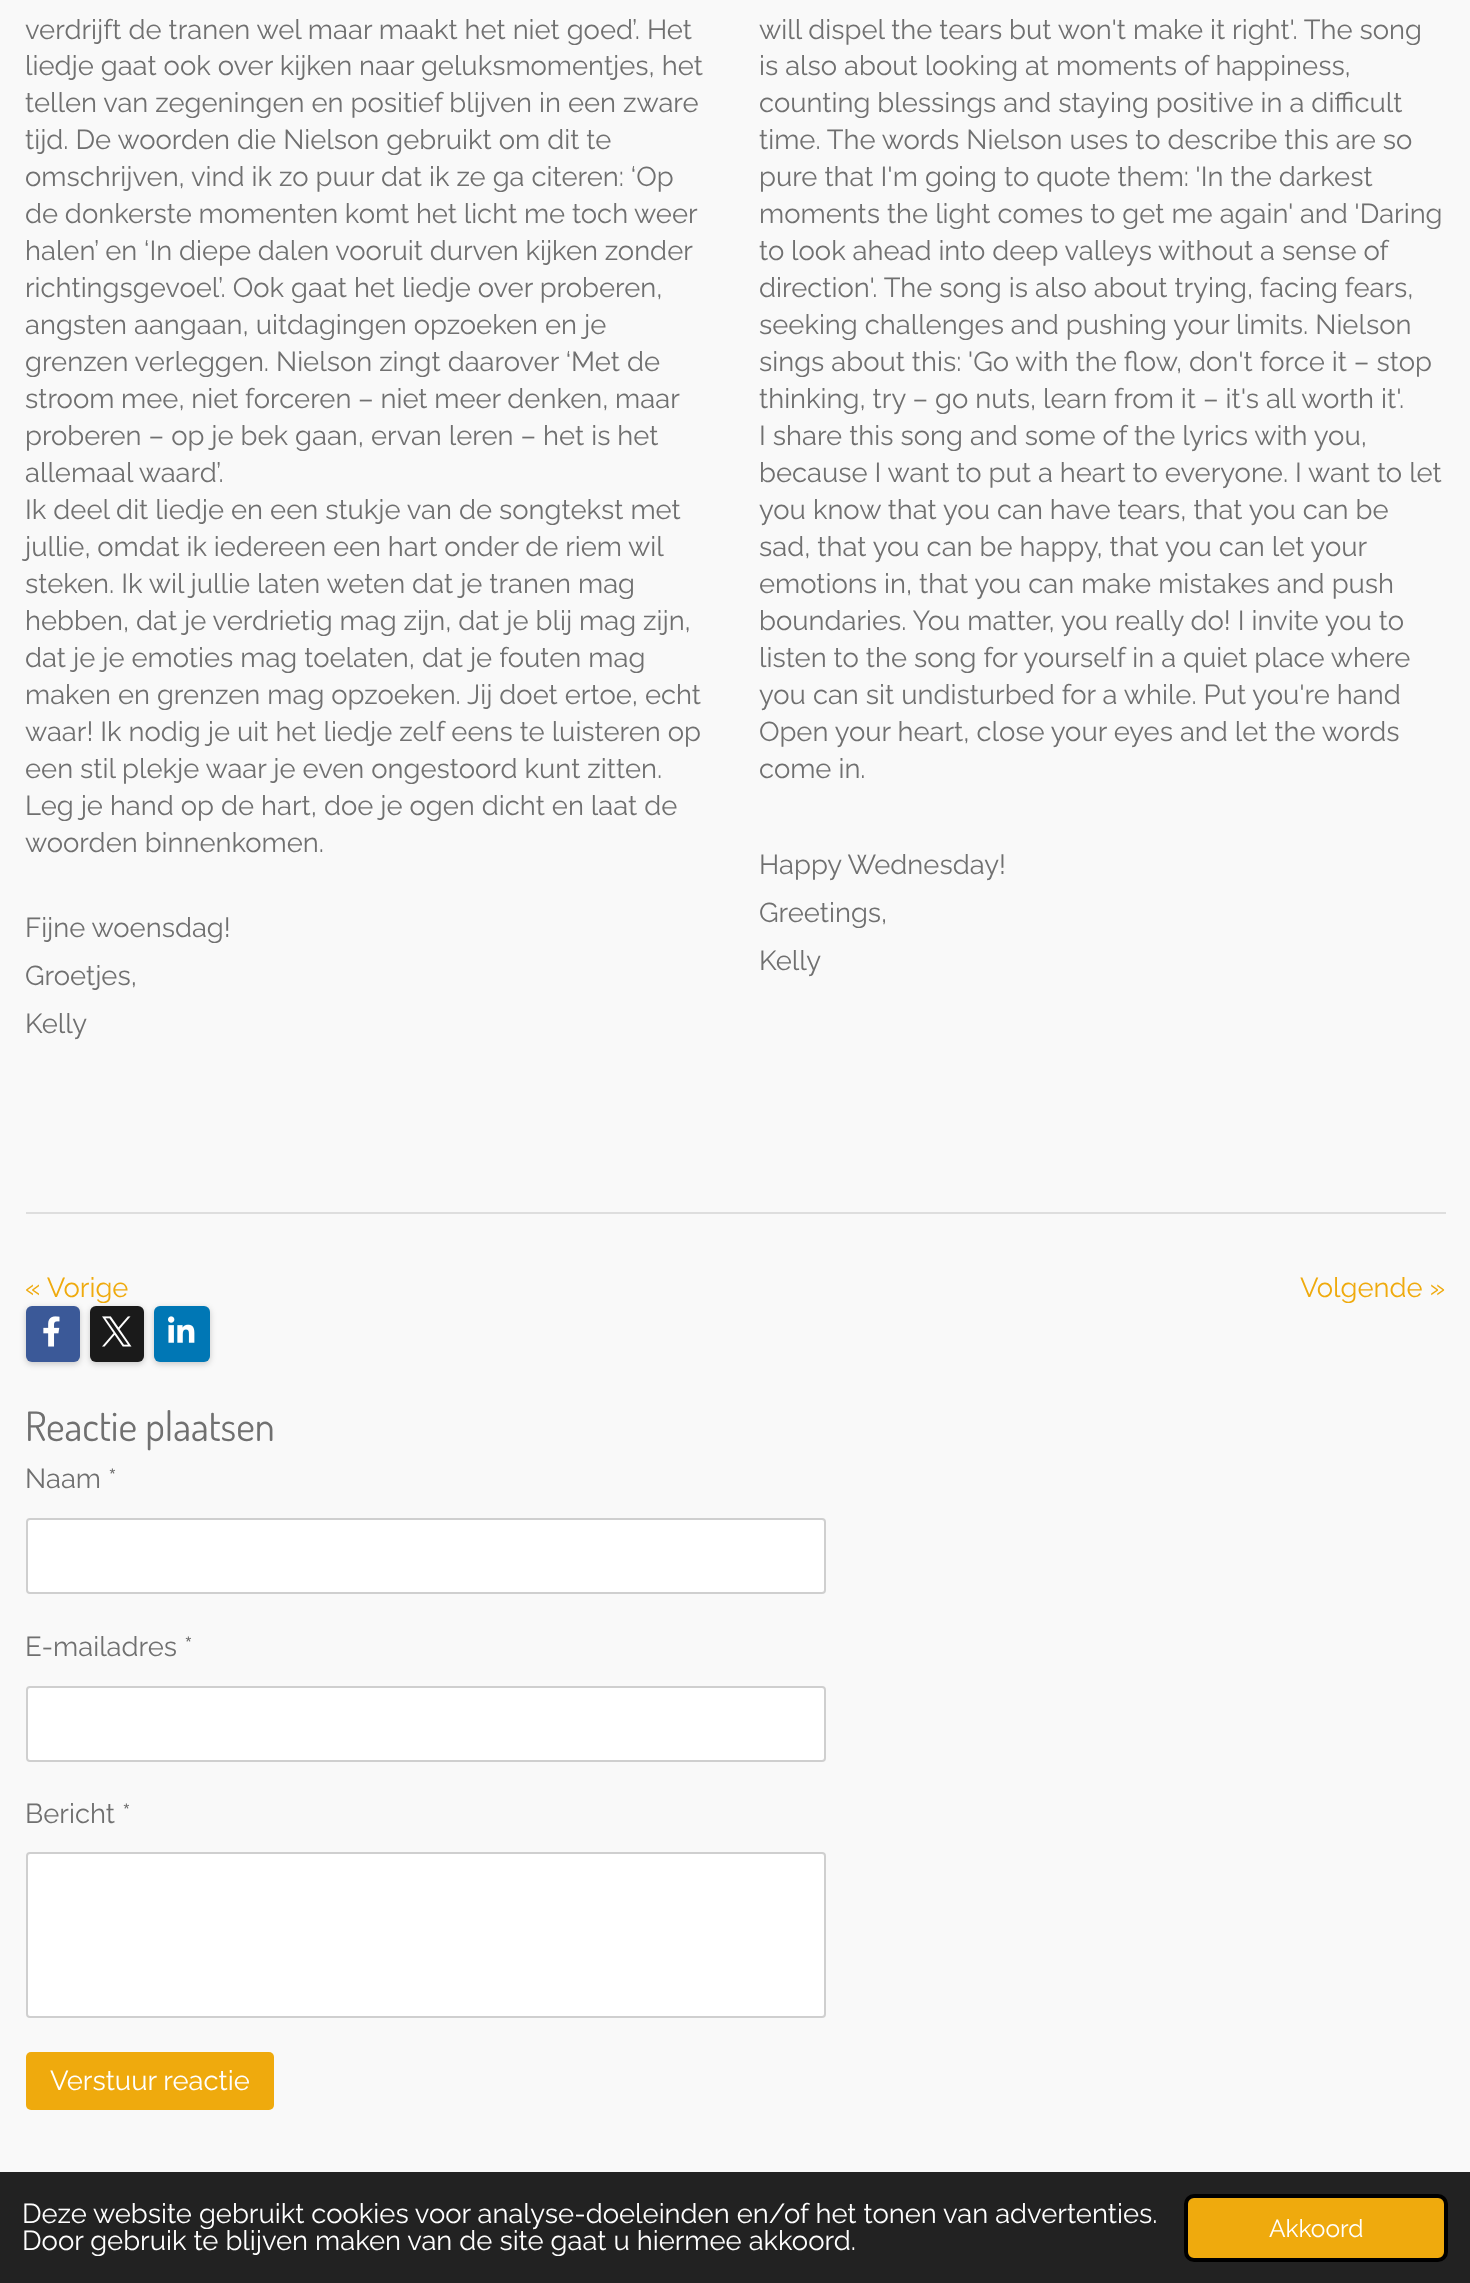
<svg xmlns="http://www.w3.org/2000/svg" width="1470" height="2283">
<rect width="100%" height="100%" fill="#f9f9f9"/>
<text x="25" y="39" style="font-family:Raleway;font-size:27.4px;fill:#707070">verdrijft de tranen wel maar maakt het niet goed’. Het</text>
<text x="25" y="75" style="font-family:Raleway;font-size:27.4px;fill:#707070">liedje gaat ook over kijken naar geluksmomentjes, het</text>
<text x="25" y="112" style="font-family:Raleway;font-size:27.4px;fill:#707070">tellen van zegeningen en positief blijven in een zware</text>
<text x="25" y="149" style="font-family:Raleway;font-size:27.4px;fill:#707070">tijd. De woorden die Nielson gebruikt om dit te</text>
<text x="25" y="186" style="font-family:Raleway;font-size:27.4px;fill:#707070">omschrijven, vind ik zo puur dat ik ze ga citeren: ‘Op</text>
<text x="25" y="223" word-spacing="-0.25" style="font-family:Raleway;font-size:27.4px;fill:#707070">de donkerste momenten komt het licht me toch weer</text>
<text x="25" y="260" word-spacing="-0.25" style="font-family:Raleway;font-size:27.4px;fill:#707070">halen’ en ‘In diepe dalen vooruit durven kijken zonder</text>
<text x="25" y="297" style="font-family:Raleway;font-size:27.4px;fill:#707070">richtingsgevoel’. Ook gaat het liedje over proberen,</text>
<text x="25" y="334" style="font-family:Raleway;font-size:27.4px;fill:#707070">angsten aangaan, uitdagingen opzoeken en je</text>
<text x="25" y="371" style="font-family:Raleway;font-size:27.4px;fill:#707070">grenzen verleggen. Nielson zingt daarover ‘Met de</text>
<text x="25" y="408" word-spacing="-0.25" style="font-family:Raleway;font-size:27.4px;fill:#707070">stroom mee, niet forceren – niet meer denken, maar</text>
<text x="25" y="445" style="font-family:Raleway;font-size:27.4px;fill:#707070">proberen – op je bek gaan, ervan leren – het is het</text>
<text x="25" y="482" style="font-family:Raleway;font-size:27.4px;fill:#707070">allemaal waard’.</text>
<text x="25" y="519" style="font-family:Raleway;font-size:27.4px;fill:#707070">Ik deel dit liedje en een stukje van de songtekst met</text>
<text x="25" y="556" word-spacing="-0.25" style="font-family:Raleway;font-size:27.4px;fill:#707070">jullie, omdat ik iedereen een hart onder de riem wil</text>
<text x="25" y="593" style="font-family:Raleway;font-size:27.4px;fill:#707070">steken. Ik wil jullie laten weten dat je tranen mag</text>
<text x="25" y="630" style="font-family:Raleway;font-size:27.4px;fill:#707070">hebben, dat je verdrietig mag zijn, dat je blij mag zijn,</text>
<text x="25" y="667" style="font-family:Raleway;font-size:27.4px;fill:#707070">dat je je emoties mag toelaten, dat je fouten mag</text>
<text x="25" y="704" style="font-family:Raleway;font-size:27.4px;fill:#707070">maken en grenzen mag opzoeken. Jij doet ertoe, echt</text>
<text x="25" y="741" style="font-family:Raleway;font-size:27.4px;fill:#707070">waar! Ik nodig je uit het liedje zelf eens te luisteren op</text>
<text x="25" y="778" style="font-family:Raleway;font-size:27.4px;fill:#707070">een stil plekje waar je even ongestoord kunt zitten.</text>
<text x="25" y="815" style="font-family:Raleway;font-size:27.4px;fill:#707070">Leg je hand op de hart, doe je ogen dicht en laat de</text>
<text x="25" y="852" style="font-family:Raleway;font-size:27.4px;fill:#707070">woorden binnenkomen.</text>
<text x="25" y="937" style="font-family:Raleway;font-size:27.4px;fill:#707070">Fijne woensdag!</text>
<text x="25" y="985" style="font-family:Raleway;font-size:27.4px;fill:#707070">Groetjes,</text>
<text x="25" y="1033" style="font-family:Raleway;font-size:27.4px;fill:#707070">Kelly</text>
<text x="759" y="39" style="font-family:Raleway;font-size:27.4px;fill:#707070">will dispel the tears but won't make it right'. The song</text>
<text x="759" y="75" style="font-family:Raleway;font-size:27.4px;fill:#707070">is also about looking at moments of happiness,</text>
<text x="759" y="112" style="font-family:Raleway;font-size:27.4px;fill:#707070">counting blessings and staying positive in a difficult</text>
<text x="759" y="149" style="font-family:Raleway;font-size:27.4px;fill:#707070">time. The words Nielson uses to describe this are so</text>
<text x="759" y="186" style="font-family:Raleway;font-size:27.4px;fill:#707070">pure that I'm going to quote them: 'In the darkest</text>
<text x="759" y="223" style="font-family:Raleway;font-size:27.4px;fill:#707070">moments the light comes to get me again' and 'Daring</text>
<text x="759" y="260" word-spacing="-0.1" style="font-family:Raleway;font-size:27.4px;fill:#707070">to look ahead into deep valleys without a sense of</text>
<text x="759" y="297" style="font-family:Raleway;font-size:27.4px;fill:#707070">direction'. The song is also about trying, facing fears,</text>
<text x="759" y="334" style="font-family:Raleway;font-size:27.4px;fill:#707070">seeking challenges and pushing your limits. Nielson</text>
<text x="759" y="371" style="font-family:Raleway;font-size:27.4px;fill:#707070">sings about this: 'Go with the flow, don't force it – stop</text>
<text x="759" y="408" style="font-family:Raleway;font-size:27.4px;fill:#707070">thinking, try – go nuts, learn from it – it's all worth it'.</text>
<text x="759" y="445" style="font-family:Raleway;font-size:27.4px;fill:#707070">I share this song and some of the lyrics with you,</text>
<text x="759" y="482" style="font-family:Raleway;font-size:27.4px;fill:#707070">because I want to put a heart to everyone. I want to let</text>
<text x="759" y="519" style="font-family:Raleway;font-size:27.4px;fill:#707070">you know that you can have tears, that you can be</text>
<text x="759" y="556" style="font-family:Raleway;font-size:27.4px;fill:#707070">sad, that you can be happy, that you can let your</text>
<text x="759" y="593" style="font-family:Raleway;font-size:27.4px;fill:#707070">emotions in, that you can make mistakes and push</text>
<text x="759" y="630" style="font-family:Raleway;font-size:27.4px;fill:#707070">boundaries. You matter, you really do! I invite you to</text>
<text x="759" y="667" style="font-family:Raleway;font-size:27.4px;fill:#707070">listen to the song for yourself in a quiet place where</text>
<text x="759" y="704" style="font-family:Raleway;font-size:27.4px;fill:#707070">you can sit undisturbed for a while. Put you're hand</text>
<text x="759" y="741" style="font-family:Raleway;font-size:27.4px;fill:#707070">Open your heart, close your eyes and let the words</text>
<text x="759" y="778" style="font-family:Raleway;font-size:27.4px;fill:#707070">come in.</text>
<text x="759" y="874" style="font-family:Raleway;font-size:27.4px;fill:#707070">Happy Wednesday!</text>
<text x="759" y="922" style="font-family:Raleway;font-size:27.4px;fill:#707070">Greetings,</text>
<text x="759" y="970" style="font-family:Raleway;font-size:27.4px;fill:#707070">Kelly</text>
<rect x="26" y="1212" width="1420" height="2" fill="#dedede"/>
<text x="25" y="1297" style="font-family:Raleway;font-size:27.4px;fill:#efaa0d">« Vorige</text>
<text x="1300" y="1297" style="font-family:Raleway;font-size:27.4px;fill:#efaa0d">Volgende »</text>
<rect x="26" y="1308" width="54" height="56" rx="6" fill="#00000033" filter="blur(3px)"/>
<rect x="26" y="1306" width="54" height="56" rx="6" fill="#3b5998"/>
<image x="43" y="1316" width="17" height="31" href="media/1.png"/>
<rect x="90" y="1308" width="54" height="56" rx="6" fill="#00000033" filter="blur(3px)"/>
<rect x="90" y="1306" width="54" height="56" rx="6" fill="#1a1a1a"/>
<image x="102" y="1316" width="30" height="31" href="media/2.png"/>
<rect x="154" y="1308" width="56" height="56" rx="6" fill="#00000033" filter="blur(3px)"/>
<rect x="154" y="1306" width="56" height="56" rx="6" fill="#0077b5"/>
<image x="168" y="1316" width="27" height="27" href="media/3.png"/>
<text x="25" y="1441" style="font-family:Dosis;font-size:40.5px;fill:#707070">Reactie plaatsen</text>
<text x="25" y="1488" style="font-family:Raleway;font-size:27.4px;fill:#707070">Naam *</text>
<rect x="27" y="1519" width="798" height="74" rx="3" fill="#fff" stroke="#cfcfcf" stroke-width="2"/>
<text x="25" y="1656" style="font-family:Raleway;font-size:27.4px;fill:#707070">E-mailadres *</text>
<rect x="27" y="1687" width="798" height="74" rx="3" fill="#fff" stroke="#cfcfcf" stroke-width="2"/>
<text x="25" y="1823" style="font-family:Raleway;font-size:27.4px;fill:#707070">Bericht *</text>
<rect x="27" y="1853" width="798" height="164" rx="3" fill="#fff" stroke="#cfcfcf" stroke-width="2"/>
<rect x="26" y="2052" width="248" height="58" rx="5" fill="#efaa0d"/>
<text x="50" y="2090" style="font-family:Raleway;font-size:27.4px;fill:#fff">Verstuur reactie</text>
<rect y="2172" width="1470" height="111" fill="#222"/>
<text x="22" y="2223" style="font-family:Raleway;font-size:27.4px;fill:#fff">Deze website gebruikt cookies voor analyse-doeleinden en/of het tonen van advertenties.</text>
<text x="22" y="2250" style="font-family:Raleway;font-size:27.4px;fill:#fff">Door gebruik te blijven maken van de site gaat u hiermee akkoord.</text>
<rect x="1186" y="2196" width="260" height="64" rx="8" fill="#efaa0d" stroke="#000" stroke-width="4"/>
<text x="1269" y="2237" style="font-family:Raleway;font-size:24.5px;fill:#fff">Akkoord</text>
</svg>
